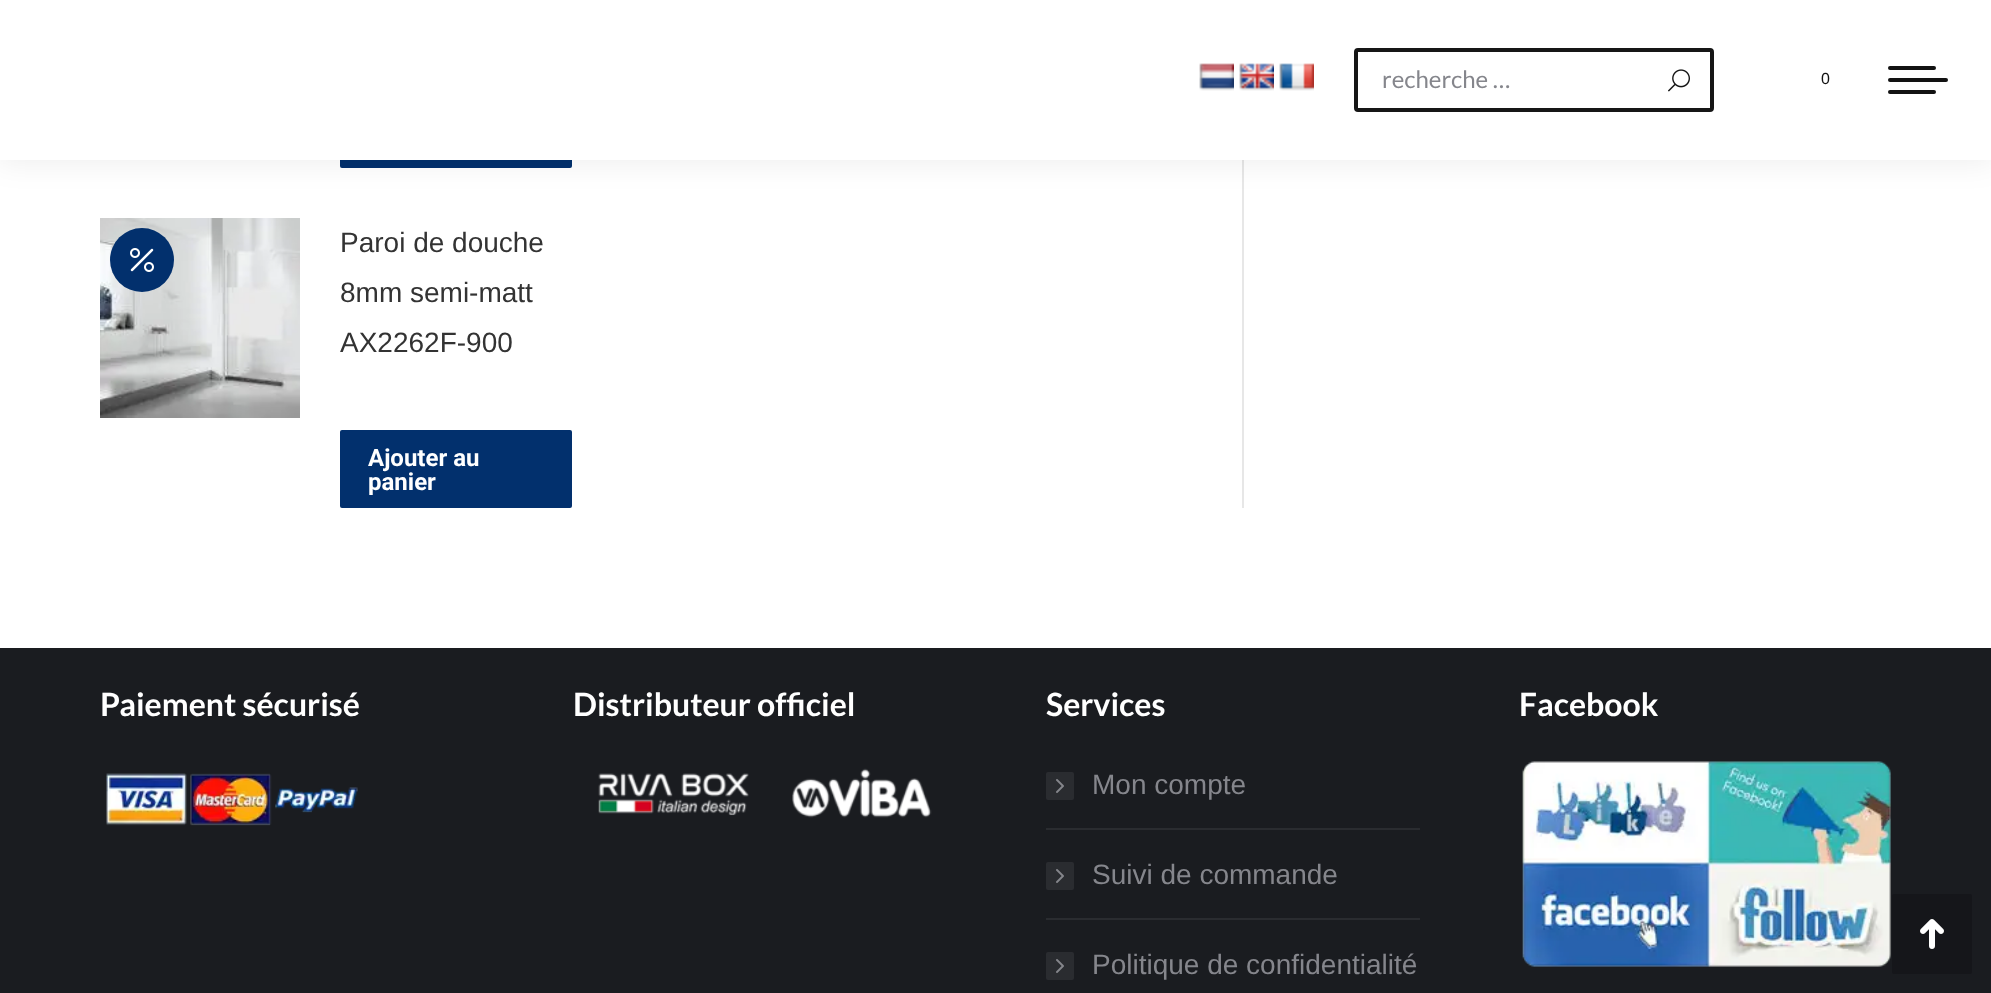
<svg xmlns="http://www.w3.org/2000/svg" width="1991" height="993">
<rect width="100%" height="100%" fill="#fff"/>
<rect x="340" y="90" width="232" height="78" rx="2" fill="#02306d"/>
<rect x="1242" y="160" width="2" height="348" fill="#e7e7e7"/>
<rect x="-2" y="-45" width="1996" height="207" fill="#00000012" filter="blur(15px)"/>
<rect width="1991" height="160" fill="#fff"/>
<image x="1199" y="63" width="35" height="28" href="media/1.png"/>
<image x="1239" y="63" width="35" height="28" href="media/2.png"/>
<image x="1279" y="63" width="35" height="28" href="media/3.png"/>
<rect x="1356" y="50" width="356" height="60" rx="2" fill="none" stroke="#161616" stroke-width="4"/>
<text x="1382" y="88" style="font-family:Lato;font-size:24px;fill:#85868c">recherche …</text>
<image x="1668" y="69" width="22" height="23" href="media/4.png"/>
<text x="1821" y="84" style="font-family:Liberation Sans;font-size:16px;fill:#121212">0</text>
<rect x="1888" y="66" width="48" height="4" rx="2" fill="#121212"/>
<rect x="1888" y="78" width="60" height="4" rx="2" fill="#121212"/>
<rect x="1888" y="90" width="48" height="4" rx="2" fill="#121212"/>
<image x="100" y="218" width="200" height="200" href="media/5.png"/>
<circle cx="142" cy="260" r="32" fill="#02306d"/>
<image x="130" y="248" width="24" height="24" href="media/6.png"/>
<text x="340" y="252" style="font-family:Liberation Sans;font-size:28px;fill:#333">Paroi de douche</text>
<text x="340" y="302" style="font-family:Liberation Sans;font-size:28px;fill:#333">8mm semi-matt</text>
<text x="340" y="352" style="font-family:Liberation Sans;font-size:28px;fill:#333">AX2262F-900</text>
<rect x="340" y="430" width="232" height="78" rx="2" fill="#02306d"/>
<text x="368" y="466" style="font-family:Roboto;font-size:24px;font-weight:bold;fill:#fff">Ajouter au</text>
<text x="368" y="490" style="font-family:Roboto;font-size:24px;font-weight:bold;fill:#fff">panier</text>
<rect y="648" width="1991" height="345" fill="#1a1c20"/>
<text x="100" y="716" style="font-family:Lato;font-size:32px;font-weight:bold;fill:#fff">Paiement sécurisé</text>
<image x="106" y="773" width="252" height="53" href="media/7.png"/>
<text x="573" y="716" style="font-family:Lato;font-size:32px;font-weight:bold;fill:#fff">Distributeur officiel</text>
<image x="598" y="768" width="334" height="50" href="media/8.png"/>
<text x="1046" y="716" style="font-family:Lato;font-size:32px;font-weight:bold;fill:#fff">Services</text>
<rect x="1046" y="772" width="28" height="28" rx="2" fill="#2a2c30"/>
<text x="1092" y="794" style="font-family:Liberation Sans;font-size:28px;fill:#85868c">Mon compte</text>
<image x="1056" y="779" width="8" height="14" href="media/9.png"/>
<rect x="1046" y="828" width="374" height="2" fill="#2a2c30"/>
<rect x="1046" y="862" width="28" height="28" rx="2" fill="#2a2c30"/>
<text x="1092" y="884" style="font-family:Liberation Sans;font-size:28px;fill:#85868c">Suivi de commande</text>
<image x="1056" y="869" width="8" height="14" href="media/9.png"/>
<rect x="1046" y="918" width="374" height="2" fill="#2a2c30"/>
<rect x="1046" y="952" width="28" height="28" rx="2" fill="#2a2c30"/>
<text x="1092" y="974" style="font-family:Liberation Sans;font-size:28px;fill:#85868c">Politique de confidentialité</text>
<image x="1056" y="959" width="8" height="14" href="media/9.png"/>
<text x="1519" y="716" style="font-family:Lato;font-size:32px;font-weight:bold;fill:#fff">Facebook</text>
<image x="1522" y="761" width="369" height="206" href="media/10.png"/>
<rect x="1892" y="894" width="80" height="80" rx="2" fill="#15161a"/>
<image x="1920" y="919" width="24" height="30" href="media/11.png"/>
</svg>
